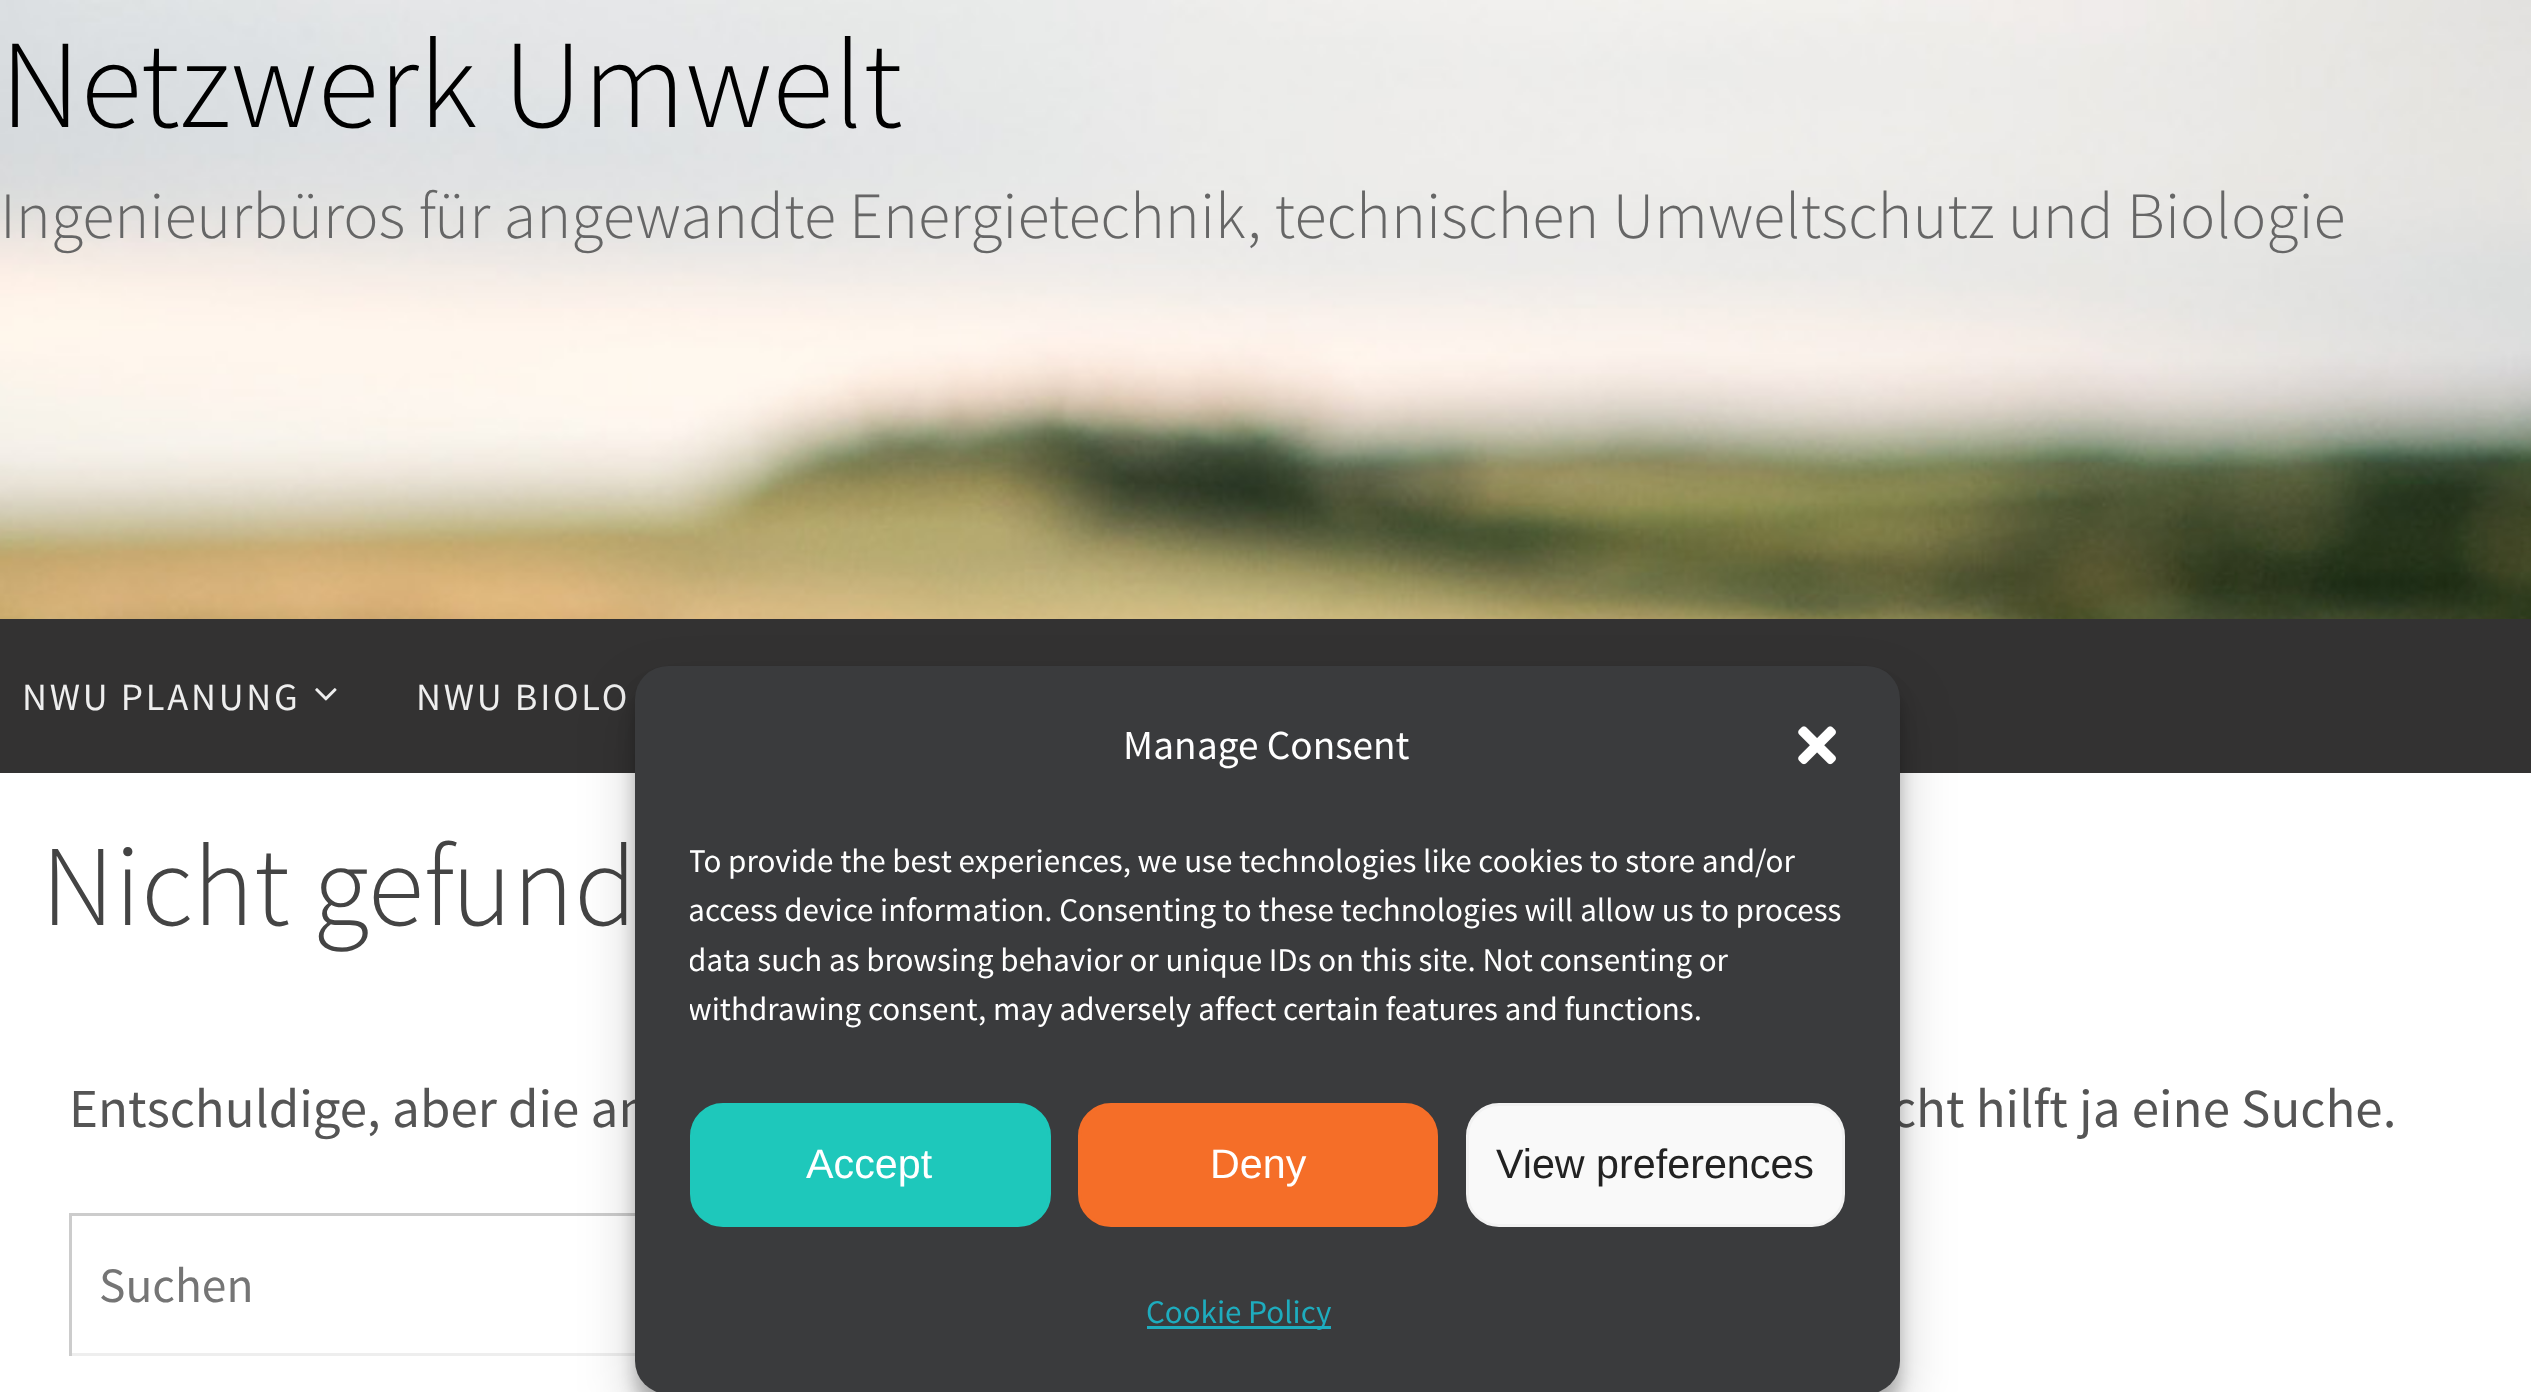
<svg xmlns="http://www.w3.org/2000/svg" width="2531" height="1392">
<defs>
<clipPath id="clip1"><rect x="690" y="836" width="1155" height="212"/></clipPath>
</defs>
<rect width="100%" height="100%" fill="#fff"/>
<image x="0" y="0" width="2531" height="619" href="media/1.png"/>
<text x="0" y="127" style="font-family:Source Sans Pro;font-size:126.5px;font-weight:300;fill:#000">Netzwerk Umwelt</text>
<text x="0" y="238" style="font-family:Source Sans Pro;font-size:66px;font-weight:300;fill:#666">Ingenieurbüros für angewandte Energietechnik, technischen Umweltschutz und Biologie</text>
<rect y="619" width="2531" height="154" fill="#333232"/>
<text x="22" y="710" style="font-family:Source Sans Pro;font-size:38.5px;letter-spacing:2.75px;fill:#eee">NWU PLANUNG</text>
<image x="315" y="688" width="22" height="13" href="media/2.png"/>
<text x="416" y="710" style="font-family:Source Sans Pro;font-size:38.5px;letter-spacing:2.75px;fill:#eee">NWU BIOLO</text>
<text x="41" y="925" style="font-family:Source Sans Pro;font-size:115.5px;font-weight:300;fill:#444">Nicht gefund</text>
<text x="69" y="1127" style="font-family:Source Sans Pro;font-size:55px;fill:#555">Entschuldige, aber die an</text>
<text x="1891" y="1127" style="font-family:Source Sans Pro;font-size:55px;fill:#555">cht hilft ja eine Suche.</text>
<rect x="69" y="1213" width="566" height="3" fill="#ccc"/>
<rect x="69" y="1353" width="566" height="3" fill="#eee"/>
<rect x="69" y="1213" width="3" height="143" fill="#ccc"/>
<text x="99" y="1302" style="font-family:Source Sans Pro;font-size:49.5px;fill:#757575">Suchen</text>
<rect x="635" y="682" width="1265" height="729" rx="33" fill="#0000003b" filter="blur(8px)"/>
<rect x="635" y="693" width="1265" height="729" rx="33" fill="#00000030" filter="blur(27.5px)"/>
<rect x="635" y="666" width="1265" height="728" rx="33" fill="#3a3b3d"/>
<text x="1123" y="759" style="font-family:Source Sans Pro;font-size:41.25px;fill:#fff">Manage Consent</text>
<image x="1798" y="726" width="38" height="39" href="media/3.png"/>
<g clip-path="url(#clip1)">
<text x="688" y="872" style="font-family:Source Sans Pro;font-size:33px;fill:#fff">To provide the best experiences, we use technologies like cookies to store and/or</text>
</g>
<text x="688" y="921" style="font-family:Source Sans Pro;font-size:33px;fill:#fff">access device information. Consenting to these technologies will allow us to process</text>
<g clip-path="url(#clip1)">
<text x="688" y="971" style="font-family:Source Sans Pro;font-size:33px;fill:#fff">data such as browsing behavior or unique IDs on this site. Not consenting or</text>
<text x="688" y="1020" style="font-family:Source Sans Pro;font-size:33px;fill:#fff">withdrawing consent, may adversely affect certain features and functions.</text>
</g>
<rect x="691.5" y="1104.5" width="358" height="121" rx="31.5" fill="#1ec8bb" stroke="#1ec8bb" stroke-width="3"/>
<text x="806" y="1178" style="font-family:Liberation Sans;font-size:41.25px;fill:#fff">Accept</text>
<rect x="1079.5" y="1104.5" width="357" height="121" rx="31.5" fill="#f56e28" stroke="#f56e28" stroke-width="3"/>
<text x="1210" y="1178" style="font-family:Liberation Sans;font-size:41.25px;fill:#fff">Deny</text>
<rect x="1467.5" y="1104.5" width="376" height="121" rx="31.5" fill="#f9f9f9" stroke="#f2f2f2" stroke-width="3"/>
<text x="1496" y="1178" style="font-family:Liberation Sans;font-size:41.25px;fill:#222">View preferences</text>
<rect x="1147" y="1326" width="184" height="3" fill="#1eacbe"/>
<text x="1146" y="1323" style="font-family:Source Sans Pro;font-size:33px;fill:#1eacbe">Cookie Policy</text>
</svg>
